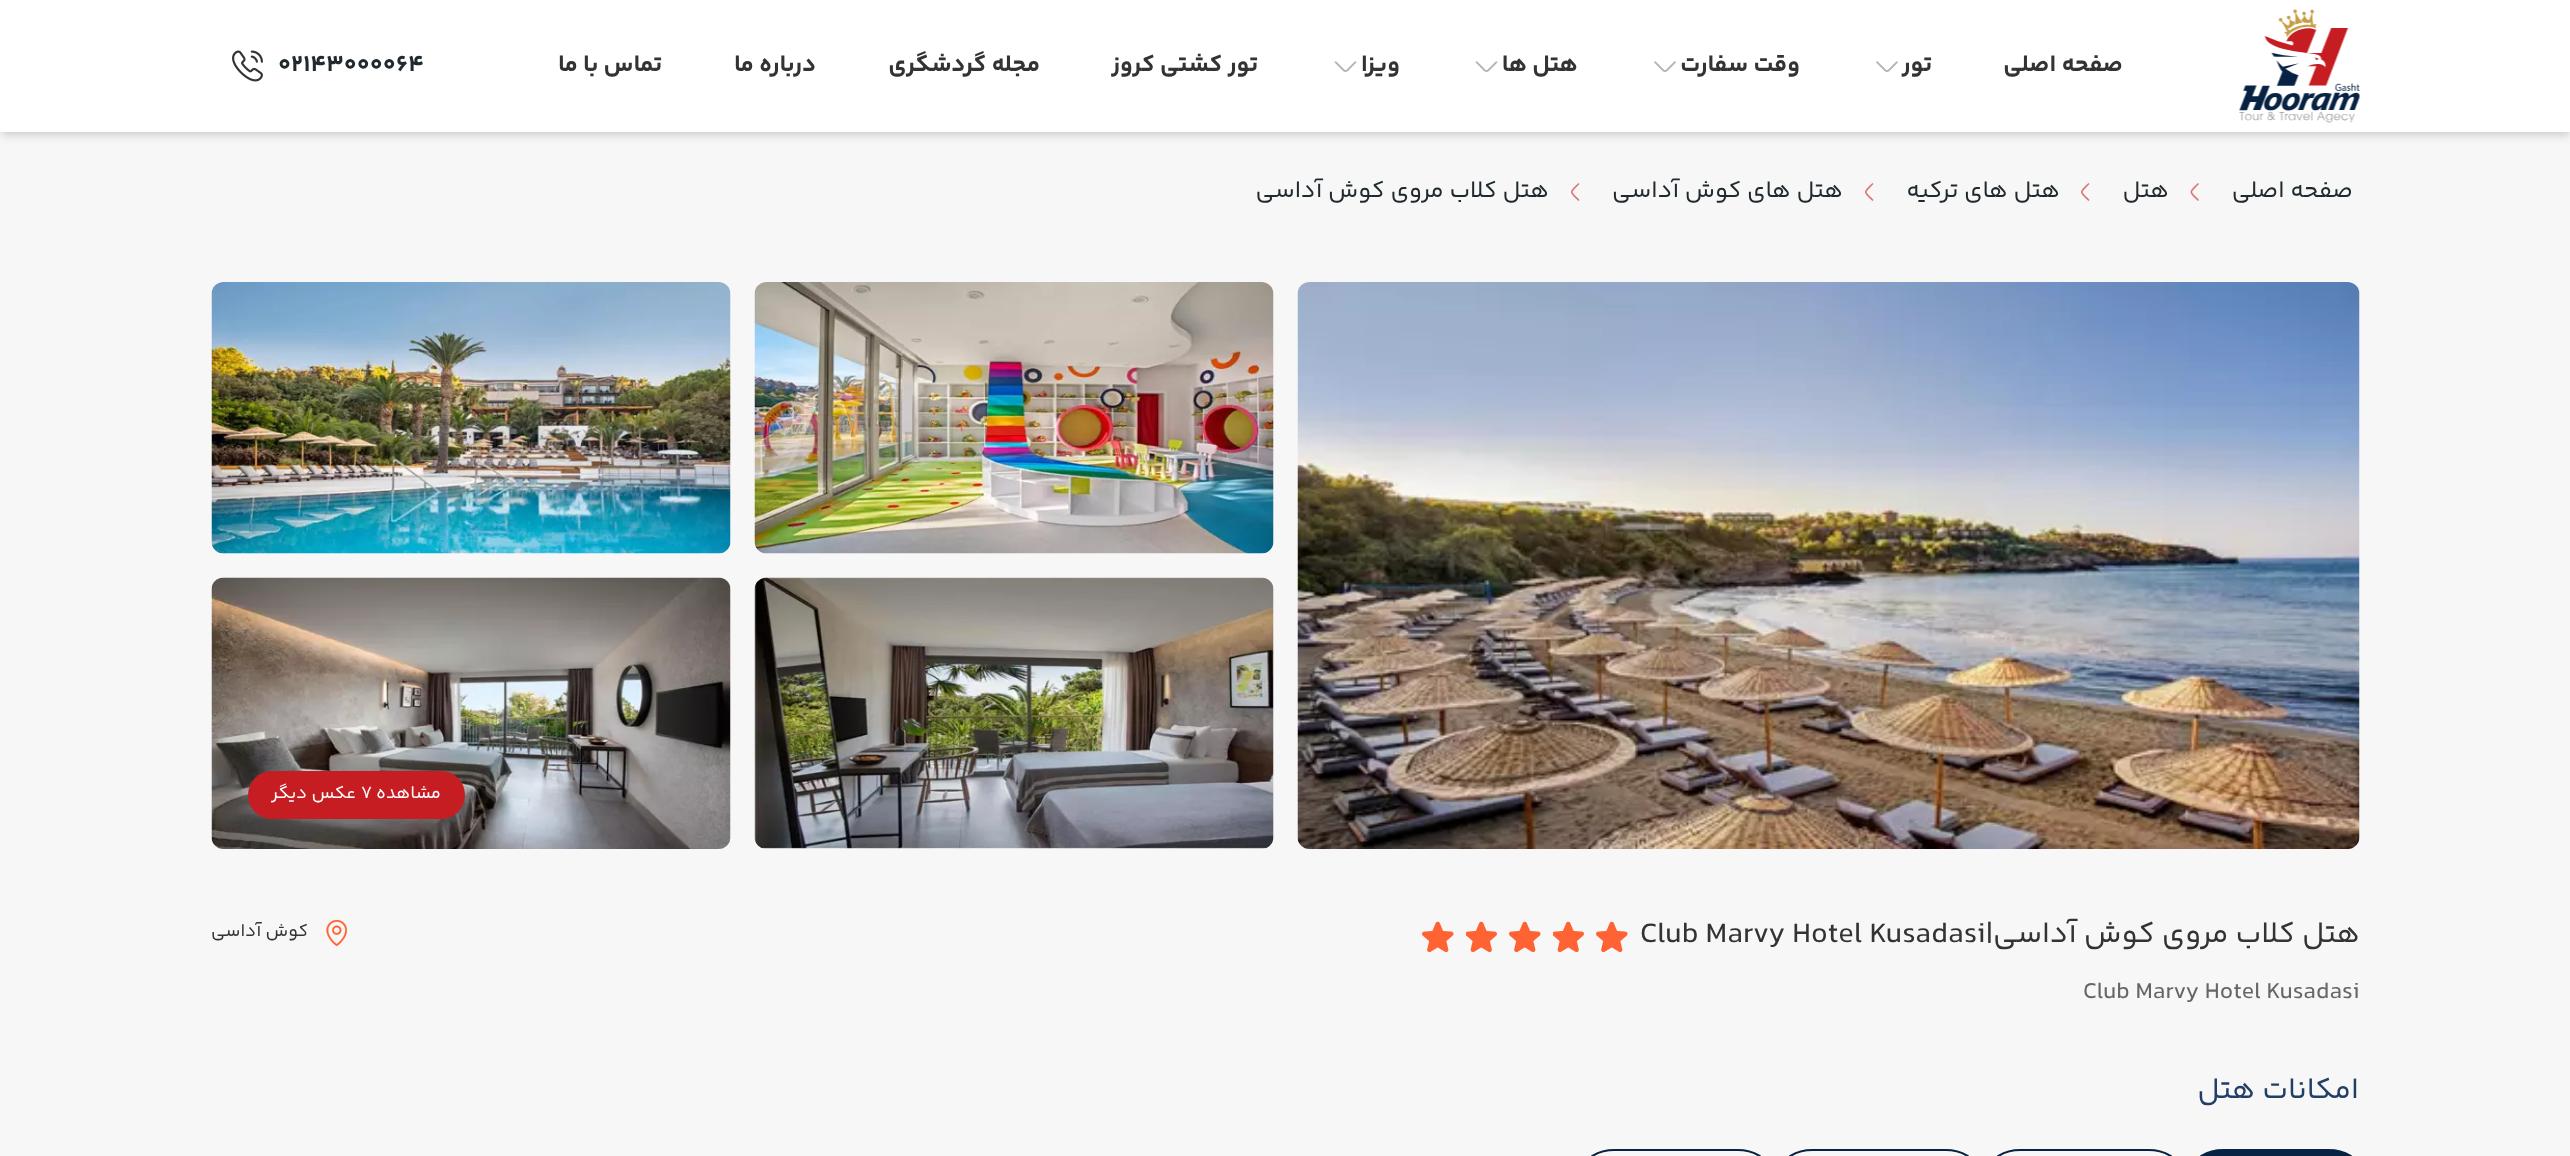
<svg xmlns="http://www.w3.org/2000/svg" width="2570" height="1156">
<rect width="100%" height="100%" fill="#f7f7f7"/>
<rect x="3" y="6" width="2565" height="126" fill="#0000001a" filter="blur(3px)"/>
<rect x="2" y="8" width="2568" height="129" fill="#0000001a" filter="blur(4.5px)"/>
<rect width="2570" height="132" fill="#fff"/>
<image x="2239" y="9" width="121" height="114" href="media/1.png"/>
<text x="2123" y="71" style="font-family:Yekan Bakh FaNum;font-size:24px;font-weight:bold;direction:rtl;fill:#333">صفحه اصلی</text>
<text x="1932" y="71" style="font-family:Yekan Bakh FaNum;font-size:24px;font-weight:bold;direction:rtl;fill:#333">تور</text>
<image x="1876" y="61" width="22" height="11" href="media/2.png"/>
<text x="1800" y="71" style="font-family:Yekan Bakh FaNum;font-size:24px;font-weight:bold;direction:rtl;fill:#333">وقت سفارت</text>
<image x="1654" y="61" width="22" height="11" href="media/2.png"/>
<text x="1578" y="71" style="font-family:Yekan Bakh FaNum;font-size:24px;font-weight:bold;direction:rtl;fill:#333">هتل ها</text>
<image x="1475" y="61" width="23" height="11" href="media/3.png"/>
<text x="1400" y="71" style="font-family:Yekan Bakh FaNum;font-size:24px;font-weight:bold;direction:rtl;fill:#333">ویزا</text>
<image x="1334" y="61" width="23" height="11" href="media/3.png"/>
<text x="1258" y="71" style="font-family:Yekan Bakh FaNum;font-size:24px;font-weight:bold;direction:rtl;fill:#333">تور کشتی کروز</text>
<text x="1040" y="71" style="font-family:Yekan Bakh FaNum;font-size:24px;font-weight:bold;direction:rtl;fill:#333">مجله گردشگری</text>
<text x="816" y="71" style="font-family:Yekan Bakh FaNum;font-size:24px;font-weight:bold;direction:rtl;fill:#333">درباره ما</text>
<text x="662" y="71" style="font-family:Yekan Bakh FaNum;font-size:24px;font-weight:bold;direction:rtl;fill:#333">تماس با ما</text>
<text x="278" y="71" style="font-family:Yekan Bakh FaNum;font-size:24px;font-weight:bold;fill:#202a2e">02143000064</text>
<image x="232" y="50" width="31" height="32" href="media/4.png"/>
<text x="2353" y="197" style="font-family:Yekan Bakh FaNum;font-size:24px;direction:rtl;fill:#202a2e">صفحه اصلی</text>
<path d="M2198 200c-9-9-9-7 0-16" fill="none" stroke="#dd777b" stroke-width="1.7" stroke-linecap="round" stroke-linejoin="round"/>
<text x="2169" y="197" style="font-family:Yekan Bakh FaNum;font-size:24px;direction:rtl;fill:#202a2e">هتل</text>
<path d="M2088.5 200c-9-9-9-7 0-16" fill="none" stroke="#dd777b" stroke-width="1.7" stroke-linecap="round" stroke-linejoin="round"/>
<text x="2060" y="197" style="font-family:Yekan Bakh FaNum;font-size:24px;direction:rtl;fill:#202a2e">هتل های ترکیه</text>
<path d="M1872.5 200c-9-9-9-7 0-16" fill="none" stroke="#dd777b" stroke-width="1.7" stroke-linecap="round" stroke-linejoin="round"/>
<text x="1843" y="197" style="font-family:Yekan Bakh FaNum;font-size:24px;direction:rtl;fill:#202a2e">هتل های کوش آداسی</text>
<path d="M1578.5 200c-9-9-9-7 0-16" fill="none" stroke="#dd777b" stroke-width="1.7" stroke-linecap="round" stroke-linejoin="round"/>
<text x="1549" y="197" style="font-family:Yekan Bakh FaNum;font-size:24px;direction:rtl;fill:#202a2e">هتل کلاب مروی کوش آداسی</text>
<image x="1297" y="282" width="1063" height="567" href="media/5.png"/>
<image x="754" y="282" width="520" height="272" href="media/6.png"/>
<image x="211" y="282" width="520" height="272" href="media/7.png"/>
<image x="754" y="577" width="520" height="272" href="media/8.png"/>
<image x="211" y="577" width="520" height="272" href="media/9.png"/>
<rect x="248" y="771" width="217" height="48" rx="24" fill="#c61d23"/>
<text x="441" y="798" style="font-family:Yekan Bakh FaNum;font-size:18px;direction:rtl;fill:#fff">مشاهده</text>
<text x="361" y="798" style="font-family:Yekan Bakh FaNum;font-size:18px;fill:#fff">7</text>
<text x="356" y="798" style="font-family:Yekan Bakh FaNum;font-size:18px;direction:rtl;fill:#fff">عکس دیگر</text>
<text x="2360" y="942" style="font-family:Yekan Bakh FaNum;font-size:30px;direction:rtl;fill:#333">هتل کلاب مروی کوش آداسی|</text>
<text x="1640" y="942" style="font-family:Yekan Bakh FaNum;font-size:30px;fill:#333">Club Marvy Hotel Kusadasi</text>
<image x="1596" y="921" width="32" height="32" href="media/10.png"/>
<image x="1553" y="921" width="31" height="32" href="media/11.png"/>
<image x="1509" y="921" width="32" height="32" href="media/10.png"/>
<image x="1466" y="921" width="31" height="32" href="media/11.png"/>
<image x="1422" y="921" width="32" height="32" href="media/10.png"/>
<text x="2083" y="998" style="font-family:Yekan Bakh FaNum;font-size:24px;fill:#666">Club Marvy Hotel Kusadasi</text>
<image x="326" y="919" width="22" height="28" href="media/12.png"/>
<text x="308" y="936" style="font-family:Yekan Bakh FaNum;font-size:18px;direction:rtl;fill:#333">کوش آداسی</text>
<text x="2359" y="1098" style="font-family:Yekan Bakh FaNum;font-size:30px;direction:rtl;fill:#213f66">امکانات هتل</text>
<rect x="2193" y="1150" width="166" height="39" rx="30.5" fill="#082243" stroke="#082243" stroke-width="2"/>
<rect x="1990" y="1150" width="189" height="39" rx="30.5" fill="none" stroke="#082243" stroke-width="2"/>
<rect x="1782" y="1150" width="194" height="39" rx="30.5" fill="none" stroke="#082243" stroke-width="2"/>
<rect x="1584" y="1150" width="184" height="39" rx="30.5" fill="none" stroke="#082243" stroke-width="2"/>
</svg>
